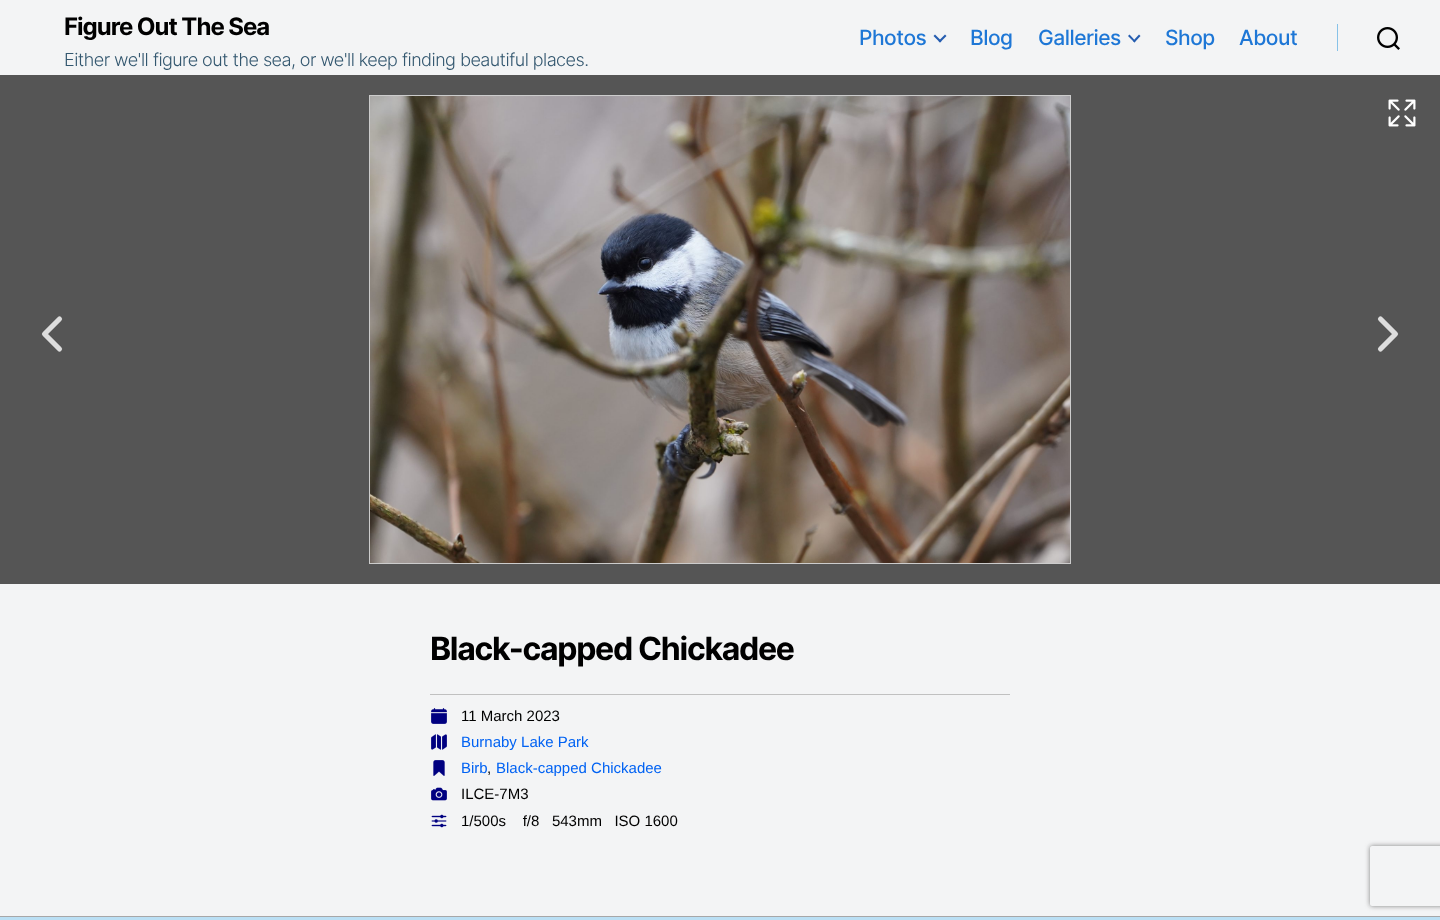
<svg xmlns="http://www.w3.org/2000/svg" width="1440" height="920">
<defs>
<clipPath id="clip1"><path d="M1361 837h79v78h-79zm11 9h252c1 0 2 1 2 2v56c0 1-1 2-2 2h-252c-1 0-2-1-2-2v-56c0-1 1-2 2-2z" clip-rule="evenodd"/></clipPath>
</defs>
<rect width="100%" height="100%" fill="#f3f4f5"/>
<text x="64" y="35" style="font-family:Inter;font-size:24px;font-weight:bold;letter-spacing:-1px;fill:#000">Figure Out The Sea</text>
<text x="64" y="66" style="font-family:Inter;font-size:18px;font-weight:300;letter-spacing:-0.55px;fill:#33576f">Either we'll figure out the sea, or we'll keep finding beautiful places.</text>
<text x="859" y="45" style="font-family:Inter;font-size:21px;font-weight:500;letter-spacing:-0.5px;fill:#1e77d6">Photos</text>
<path d="M933.5 36l1.5-1.5l6.5 6.5l-1.5 1.5z" fill="#255db0"/>
<path d="M938.5 41l6.5-6.5l1.5 1.5l-6.5 6.5z" fill="#255db0"/>
<text x="970" y="45" style="font-family:Inter;font-size:21px;font-weight:500;letter-spacing:-0.5px;fill:#1e77d6">Blog</text>
<text x="1038" y="45" style="font-family:Inter;font-size:21px;font-weight:500;letter-spacing:-0.5px;fill:#1e77d6">Galleries</text>
<path d="M1128 36l1.5-1.5l6 6.5l-1 1.5z" fill="#255db0"/>
<path d="M1133 41l6-6.5l1.5 1.5l-6 6.5z" fill="#255db0"/>
<text x="1165" y="45" style="font-family:Inter;font-size:21px;font-weight:500;letter-spacing:-0.5px;fill:#1e77d6">Shop</text>
<text x="1239" y="45" style="font-family:Inter;font-size:21px;font-weight:500;letter-spacing:-0.5px;fill:#1e77d6">About</text>
<rect x="1337" y="24" width="1" height="27" fill="#87c2e8"/>
<image x="1377" y="27" width="23" height="23" href="media/1.png"/>
<rect y="75" width="1440" height="509" fill="#555"/>
<rect x="369.5" y="95.5" width="701" height="468" fill="none" stroke="#ccc"/>
<image x="370" y="96" width="700" height="467" href="media/2.png"/>
<image x="1388" y="99" width="28" height="28" href="media/3.png"/>
<path d="M59.5 319l-15 15l15 15" fill="none" stroke="#ddd" stroke-width="5.1" stroke-linecap="round" stroke-linejoin="round"/>
<path d="M1380.5 319l15 15l-15 15" fill="none" stroke="#ddd" stroke-width="5.1" stroke-linecap="round" stroke-linejoin="round"/>
<text x="430" y="660" style="font-family:Inter;font-size:32px;font-weight:bold;letter-spacing:-1.3px;fill:#000">Black-capped Chickadee</text>
<rect x="430" y="694" width="580" height="1" fill="#c0c0c0"/>
<image x="431" y="708" width="16" height="16" href="media/4.png"/>
<text x="461" y="721" style="font-family:Liberation Sans;font-size:15px;fill:#000">11 March 2023</text>
<image x="431" y="734" width="16" height="16" href="media/5.png"/>
<text x="461" y="747" style="font-family:Liberation Sans;font-size:15px;fill:#0162f3">Burnaby Lake Park</text>
<image x="433" y="760" width="12" height="16" href="media/6.png"/>
<text x="461" y="773" style="font-family:Liberation Sans;font-size:15px;fill:#0162f3">Birb</text>
<text x="487" y="773" style="font-family:Liberation Sans;font-size:15px;fill:#000">,</text>
<text x="496" y="773" style="font-family:Liberation Sans;font-size:15px;fill:#0162f3">Black-capped Chickadee</text>
<image x="431" y="787" width="16" height="14" href="media/7.png"/>
<text x="461" y="799" style="font-family:Liberation Sans;font-size:15px;fill:#000">ILCE-7M3</text>
<image x="431" y="814" width="16" height="14" href="media/8.png"/>
<text x="461" y="826" style="font-family:Liberation Sans;font-size:15px;fill:#000" xml:space="preserve">1/500s    f/8   543mm   ISO 1600</text>
<g clip-path="url(#clip1)">
<rect x="1370" y="846" width="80" height="60" rx="2" fill="#808080" filter="blur(2.5px)"/>
</g>
<rect y="917" width="1440" height="3" fill="#badff4"/>
<rect y="916" width="1440" height="1" fill="#a7a7a8"/>
</svg>
